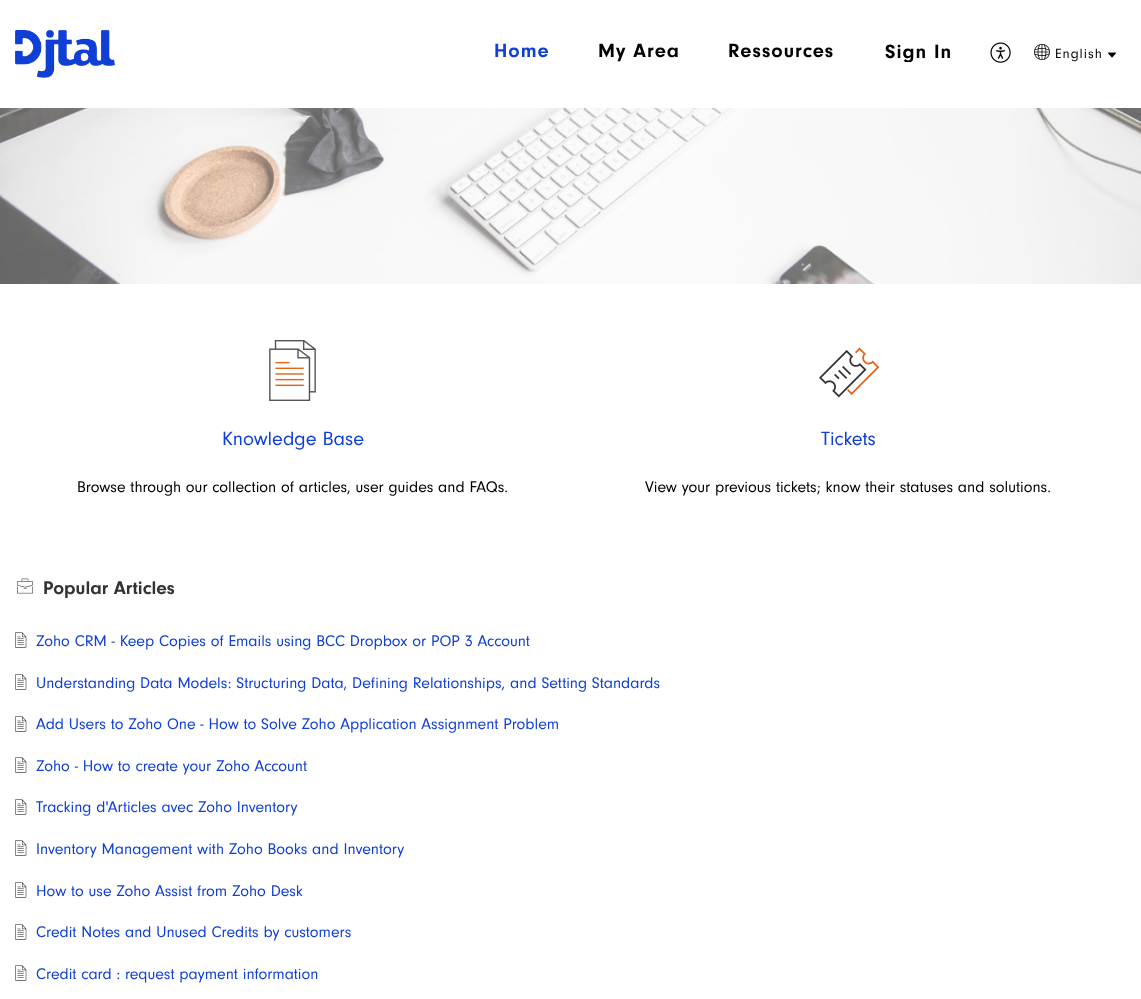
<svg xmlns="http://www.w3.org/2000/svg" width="1141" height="999">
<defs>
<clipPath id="clip1"><rect x="875" y="42" width="87" height="20"/></clipPath>
</defs>
<rect width="100%" height="100%" fill="#fff"/>
<image x="0" y="108" width="1141" height="176" href="media/1.png"/>
<image x="15" y="30" width="100" height="48" href="media/2.png"/>
<text x="494" y="57" style="font-family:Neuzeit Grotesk;font-size:20px;font-weight:bold;letter-spacing:1px;fill:#103fd5">Home</text>
<text x="598" y="57" style="font-family:Neuzeit Grotesk;font-size:20px;font-weight:bold;letter-spacing:1px;fill:#000">My Area</text>
<text x="728" y="57" style="font-family:Neuzeit Grotesk;font-size:20px;font-weight:bold;letter-spacing:1px;fill:#000">Ressources</text>
<g clip-path="url(#clip1)">
<text x="885" y="58" style="font-family:Neuzeit Grotesk;font-size:20px;font-weight:bold;letter-spacing:1px;fill:#000">Sign In</text>
</g>
<image x="990" y="42" width="21" height="21" href="media/3.png"/>
<image x="1034" y="44" width="16" height="16" href="media/4.png"/>
<text x="1055" y="58" style="font-family:Neuzeit Grotesk;font-size:14px;letter-spacing:1px;fill:#000">English</text>
<image x="1108" y="52" width="8" height="6" href="media/5.png"/>
<image x="269" y="340" width="47" height="61" href="media/6.png"/>
<text x="222" y="445" style="font-family:Neuzeit Grotesk;font-size:20px;fill:#103fd5">Knowledge Base</text>
<text x="77" y="492" style="font-family:Neuzeit Grotesk;font-size:16px;fill:#000">Browse through our collection of articles, user guides and FAQs.</text>
<image x="819" y="347" width="60" height="51" href="media/7.png"/>
<text x="821" y="445" style="font-family:Neuzeit Grotesk;font-size:20px;fill:#103fd5">Tickets</text>
<text x="645" y="492" style="font-family:Neuzeit Grotesk;font-size:16px;fill:#000">View your previous tickets; know their statuses and solutions.</text>
<image x="17" y="578" width="16" height="16" href="media/8.png"/>
<text x="43" y="594" style="font-family:Neuzeit Grotesk;font-size:19px;font-weight:bold;fill:#333">Popular Articles</text>
<image x="15" y="632" width="12" height="16" href="media/9.png"/>
<text x="36" y="646" style="font-family:Neuzeit Grotesk;font-size:16px;fill:#103fd5">Zoho CRM - Keep Copies of Emails using BCC Dropbox or POP 3 Account</text>
<image x="15" y="674" width="12" height="16" href="media/9.png"/>
<text x="36" y="688" style="font-family:Neuzeit Grotesk;font-size:16px;fill:#103fd5">Understanding Data Models: Structuring Data, Defining Relationships, and Setting Standards</text>
<image x="15" y="716" width="12" height="16" href="media/9.png"/>
<text x="36" y="729" style="font-family:Neuzeit Grotesk;font-size:16px;fill:#103fd5">Add Users to Zoho One - How to Solve Zoho Application Assignment Problem</text>
<image x="15" y="757" width="12" height="16" href="media/9.png"/>
<text x="36" y="771" style="font-family:Neuzeit Grotesk;font-size:16px;fill:#103fd5">Zoho - How to create your Zoho Account</text>
<image x="15" y="799" width="12" height="16" href="media/9.png"/>
<text x="36" y="812" style="font-family:Neuzeit Grotesk;font-size:16px;fill:#103fd5">Tracking d'Articles avec Zoho Inventory</text>
<image x="15" y="840" width="12" height="16" href="media/9.png"/>
<text x="36" y="854" style="font-family:Neuzeit Grotesk;font-size:16px;fill:#103fd5">Inventory Management with Zoho Books and Inventory</text>
<image x="15" y="882" width="12" height="16" href="media/9.png"/>
<text x="36" y="896" style="font-family:Neuzeit Grotesk;font-size:16px;fill:#103fd5">How to use Zoho Assist from Zoho Desk</text>
<image x="15" y="924" width="12" height="16" href="media/9.png"/>
<text x="36" y="937" style="font-family:Neuzeit Grotesk;font-size:16px;fill:#103fd5">Credit Notes and Unused Credits by customers</text>
<image x="15" y="965" width="12" height="16" href="media/9.png"/>
<text x="36" y="979" style="font-family:Neuzeit Grotesk;font-size:16px;fill:#103fd5">Credit card : request payment information</text>
</svg>
